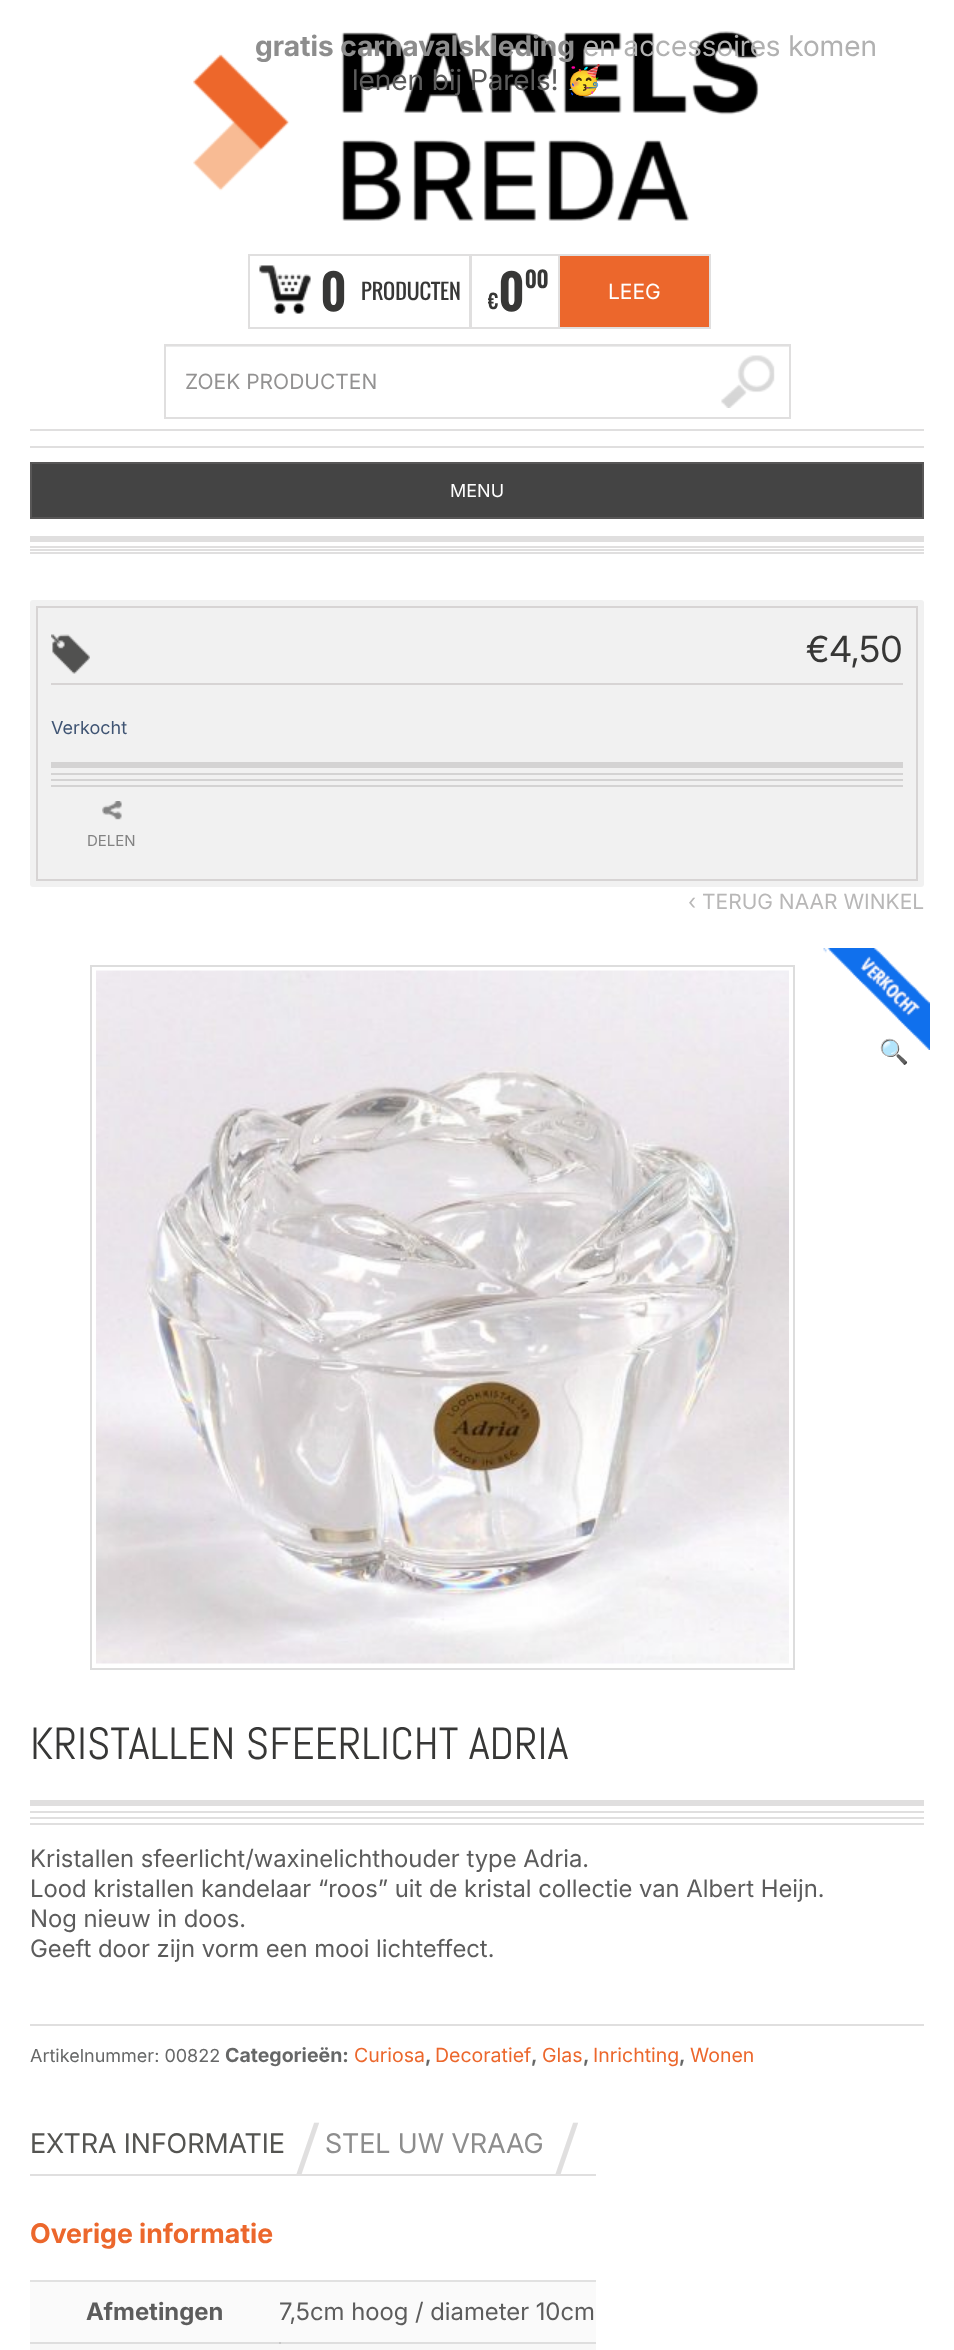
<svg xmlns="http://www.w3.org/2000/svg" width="954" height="2350">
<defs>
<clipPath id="clip1"><rect x="30" y="2117" width="566" height="57"/></clipPath>
</defs>
<rect width="100%" height="100%" fill="#fff"/>
<image x="193" y="31" width="566" height="190" href="media/1.png"/>
<text x="255" y="56" style="font-family:'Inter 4';font-size:28.5px;font-weight:bold;fill:#8d8d8d">gratis carnavalskleding</text>
<text x="583" y="56" style="font-family:'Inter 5';font-size:28.5px;fill:#b1b1b1">en accessoires komen</text>
<text x="352" y="90" style="font-family:'Inter 5';font-size:28.5px;fill:#5c5c5c">lenen bij Parels!</text>
<text x="566" y="90" style="font-family:'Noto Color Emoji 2';font-size:28.5px;fill:#404040">🥳</text>
<rect x="30" y="429" width="894" height="2" fill="#e0dfdf"/>
<image x="259" y="265" width="52" height="49" href="media/2.png"/>
<rect x="249" y="255" width="221" height="73" fill="none" stroke="#e0dfdf" stroke-width="2"/>
<text x="321" y="311" style="font-family:Oswald;font-size:45px;font-weight:bold;fill:#373736">0</text>
<text x="361" y="300" style="font-family:Oswald;font-size:21px;fill:#373736">PRODUCTEN</text>
<rect x="471" y="255" width="88" height="73" fill="none" stroke="#e0dfdf" stroke-width="2"/>
<text x="488" y="309" style="font-family:Oswald;font-size:22px;fill:#373736">€</text>
<text x="499" y="311" style="font-family:Oswald;font-size:45px;font-weight:bold;fill:#373736">0</text>
<text x="525" y="288" style="font-family:Oswald;font-size:21px;font-weight:bold;fill:#373736">00</text>
<rect x="559" y="255" width="151" height="73" fill="#ec672c" stroke="#e0dfdf" stroke-width="2"/>
<text x="608" y="299" style="font-family:Inter;font-size:21px;fill:#fff">LEEG</text>
<image x="721" y="355" width="54" height="53" href="media/3.png"/>
<rect x="165" y="346" width="624" height="1" fill="#ececec"/>
<rect x="165" y="345" width="625" height="73" fill="none" stroke="#e0dfdf" stroke-width="2"/>
<text x="185" y="389" style="font-family:Inter;font-size:21px;fill:#939292">ZOEK PRODUCTEN</text>
<rect x="30" y="446" width="894" height="2" fill="#e0dfdf"/>
<rect x="31" y="463" width="892" height="55" fill="#444" stroke="#585757" stroke-width="2"/>
<text x="450" y="497" style="font-family:Inter;font-size:18px;fill:#fff">MENU</text>
<rect x="30" y="536" width="894" height="6" fill="#e0dfdf"/>
<rect x="30" y="546" width="894" height="2" fill="#e0dfdf"/>
<rect x="30" y="549" width="894" height="2" fill="#e0dfdf"/>
<rect x="30" y="552" width="894" height="2" fill="#e0dfdf"/>
<rect x="30" y="600" width="894" height="287" rx="3" fill="#f1f1f1"/>
<rect x="37" y="607" width="880" height="273" fill="none" stroke="#d7d4d4" stroke-width="2"/>
<image x="51" y="634" width="39" height="40" href="media/4.png"/>
<rect x="51" y="683" width="852" height="2" fill="#d7d4d4"/>
<text x="806" y="662" style="font-family:'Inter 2';font-size:36px;fill:#373736">€4,50</text>
<text x="51" y="734" style="font-family:Inter;font-size:18px;fill:#3f5473">Verkocht</text>
<rect x="51" y="762" width="852" height="6" fill="#d4d3d3"/>
<rect x="51" y="773" width="852" height="2" fill="#d4d3d3"/>
<rect x="51" y="779" width="852" height="2" fill="#d4d3d3"/>
<rect x="51" y="785" width="852" height="2" fill="#d4d3d3"/>
<image x="102" y="801" width="20" height="19" href="media/5.png"/>
<text x="87" y="846" style="font-family:Inter;font-size:15px;fill:#828282">DELEN</text>
<text x="688" y="909" style="font-family:Inter;font-size:21px;fill:#b8b7b7">‹ TERUG NAAR WINKEL</text>
<rect x="91" y="966" width="703" height="703" fill="none" stroke="#ddd" stroke-width="2"/>
<image x="96" y="970" width="693" height="694" href="media/6.png"/>
<image x="823" y="948" width="107" height="102" href="media/7.png"/>
<text x="879" y="1060" style="font-family:Noto Color Emoji;font-size:24px;fill:#ec672c">🔍</text>
<text x="30" y="1759" style="font-family:Abel;font-size:45px;fill:#373736">KRISTALLEN SFEERLICHT ADRIA</text>
<rect x="30" y="1800" width="894" height="6" fill="#e0dfdf"/>
<rect x="30" y="1811" width="894" height="2" fill="#e0dfdf"/>
<rect x="30" y="1817" width="894" height="2" fill="#e0dfdf"/>
<rect x="30" y="1823" width="894" height="2" fill="#e0dfdf"/>
<text x="30" y="1867" style="font-family:'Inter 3';font-size:24px;fill:#5c5c5c">Kristallen sfeerlicht/waxinelichthouder type Adria.</text>
<text x="30" y="1897" style="font-family:'Inter 3';font-size:24px;fill:#5c5c5c">Lood kristallen kandelaar “roos” uit de kristal collectie van Albert Heijn.</text>
<text x="30" y="1927" style="font-family:'Inter 3';font-size:24px;fill:#5c5c5c">Nog nieuw in doos.</text>
<text x="30" y="1957" style="font-family:'Inter 3';font-size:24px;fill:#5c5c5c">Geeft door zijn vorm een mooi lichteffect.</text>
<rect x="30" y="2024" width="894" height="2" fill="#e0dfdf"/>
<text x="30" y="2062" style="font-family:Inter;font-size:18px;fill:#666767">Artikelnummer: 00822</text>
<text x="225" y="2062" style="font-family:Inter;font-size:19.5px;font-weight:bold;fill:#666767">Categorieën:</text>
<text x="354" y="2062" style="font-family:Inter;font-size:19.5px;fill:#ec672c">Curiosa</text>
<text x="425" y="2062" style="font-family:Inter;font-size:19.5px;font-weight:bold;fill:#666767">,</text>
<text x="435" y="2062" style="font-family:Inter;font-size:19.5px;fill:#ec672c">Decoratief</text>
<text x="531" y="2062" style="font-family:Inter;font-size:19.5px;font-weight:bold;fill:#666767">,</text>
<text x="542" y="2062" style="font-family:Inter;font-size:19.5px;fill:#ec672c">Glas</text>
<text x="583" y="2062" style="font-family:Inter;font-size:19.5px;font-weight:bold;fill:#666767">,</text>
<text x="593" y="2062" style="font-family:Inter;font-size:19.5px;fill:#ec672c">Inrichting</text>
<text x="679" y="2062" style="font-family:Inter;font-size:19.5px;font-weight:bold;fill:#666767">,</text>
<text x="690" y="2062" style="font-family:Inter;font-size:19.5px;fill:#ec672c">Wonen</text>
<rect x="30" y="2174" width="566" height="2" fill="#e0dfdf"/>
<text x="30" y="2153" style="font-family:'Inter 4';font-size:27px;fill:#545451">EXTRA INFORMATIE</text>
<g clip-path="url(#clip1)">
<text x="290" y="2192" style="font-family:Liberation Serif;font-size:105px;fill:#e0dfdf">/</text>
</g>
<text x="325" y="2153" style="font-family:'Inter 4';font-size:27px;fill:#8d8d8d">STEL UW VRAAG</text>
<g clip-path="url(#clip1)">
<text x="549" y="2192" style="font-family:Liberation Serif;font-size:105px;fill:#e0dfdf">/</text>
</g>
<text x="30" y="2243" style="font-family:'Inter 2';font-size:27px;font-weight:bold;fill:#ec672c">Overige informatie</text>
<rect x="30" y="2280" width="566" height="2" fill="#e1e1e1"/>
<rect x="30" y="2282" width="566" height="60" fill="#fafafa"/>
<text x="86" y="2320" style="font-family:'Inter 3';font-size:24px;font-weight:bold;fill:#5c5c5c">Afmetingen</text>
<rect x="30" y="2342" width="566" height="2" fill="#dedede"/>
<rect x="279" y="2342" width="2" height="2" fill="#c8c8c8"/>
<text x="279" y="2320" style="font-family:'Inter 3';font-size:24px;fill:#5c5c5c">7,5cm hoog / diameter 10cm</text>
<rect x="30" y="2344" width="566" height="6" fill="#f7f7f7"/>
</svg>
